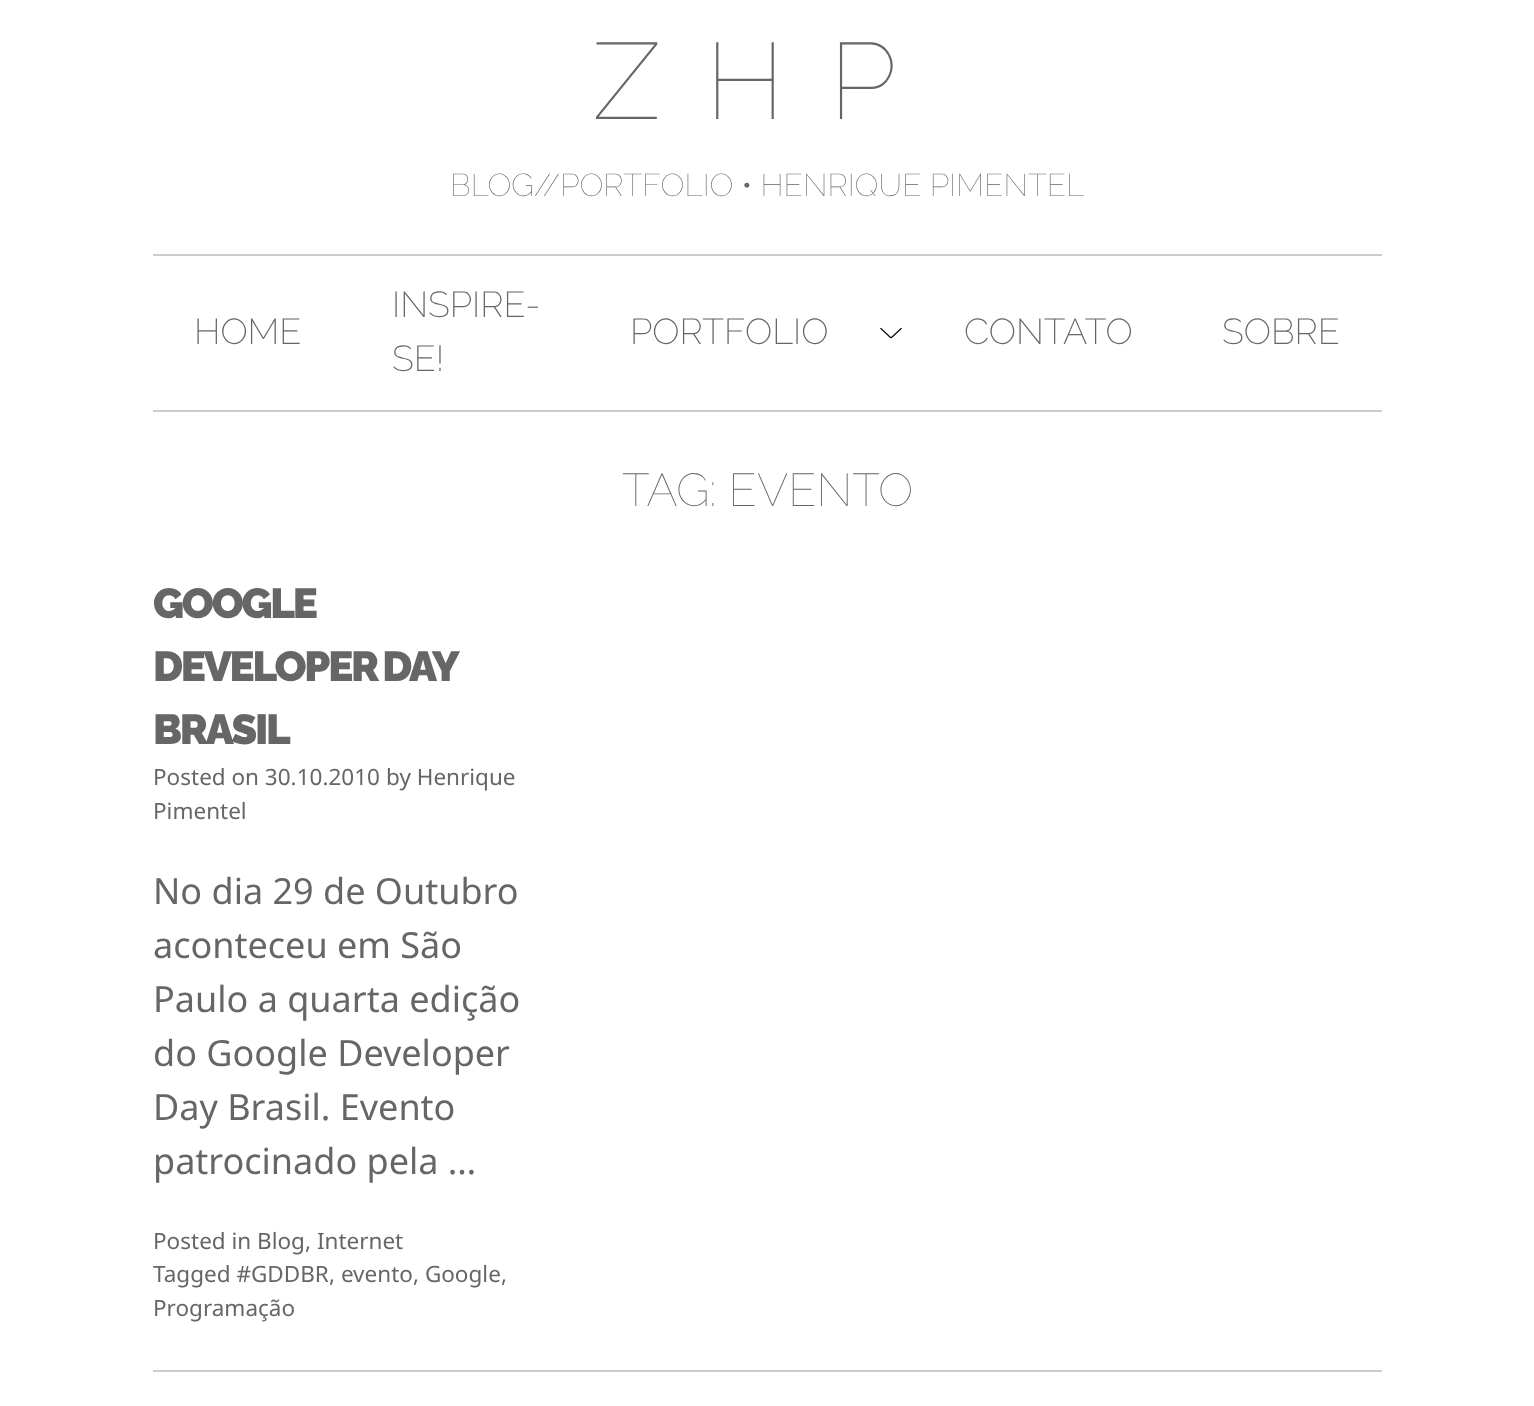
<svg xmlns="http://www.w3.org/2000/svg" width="1534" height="1406">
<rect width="100%" height="100%" fill="#fff"/>
<text x="593" y="119" style="font-family:Raleway;font-size:108px;font-weight:100;letter-spacing:45px;fill:#666">ZHP</text>
<text x="450" y="196" style="font-family:Raleway;font-size:31.5px;font-weight:100;fill:#666">BLOG//PORTFOLIO • HENRIQUE PIMENTEL</text>
<rect x="153" y="254" width="1229" height="2" fill="#ccc"/>
<rect x="153" y="410" width="1229" height="2" fill="#ccc"/>
<text x="194" y="344" style="font-family:Raleway;font-size:36px;font-weight:200;fill:#666">HOME</text>
<text x="392" y="317" style="font-family:Raleway;font-size:36px;font-weight:200;fill:#666">INSPIRE-</text>
<text x="392" y="371" style="font-family:Raleway;font-size:36px;font-weight:200;fill:#666">SE!</text>
<image x="880" y="327" width="22" height="12" href="media/1.png"/>
<text x="630" y="344" style="font-family:Raleway;font-size:36px;font-weight:200;fill:#666">PORTFOLIO</text>
<text x="964" y="344" style="font-family:Raleway;font-size:36px;font-weight:200;fill:#666">CONTATO</text>
<text x="1222" y="344" style="font-family:Raleway;font-size:36px;font-weight:200;fill:#666">SOBRE</text>
<text x="622" y="506" style="font-family:Raleway;font-size:46px;font-weight:100;fill:#666">TAG: EVENTO</text>
<text x="153" y="618" style="font-family:Raleway;font-size:42px;font-weight:900;letter-spacing:-2.25px;fill:#666">GOOGLE</text>
<text x="153" y="681" word-spacing="-2" style="font-family:Raleway;font-size:42px;font-weight:900;letter-spacing:-2.25px;fill:#666">DEVELOPER DAY</text>
<text x="153" y="744" style="font-family:Raleway;font-size:42px;font-weight:900;letter-spacing:-2.25px;fill:#666">BRASIL</text>
<text x="153" y="785" style="font-family:Noto Sans;font-size:22.5px;fill:#666">Posted on 30.10.2010</text>
<text x="386" y="785" style="font-family:Noto Sans;font-size:22.5px;fill:#666">by Henrique</text>
<text x="153" y="819" style="font-family:Noto Sans;font-size:22.5px;fill:#666">Pimentel</text>
<text x="153" y="904" style="font-family:Noto Sans;font-size:36px;fill:#666">No dia 29 de Outubro</text>
<text x="153" y="958" style="font-family:Noto Sans;font-size:36px;fill:#666">aconteceu em São</text>
<text x="153" y="1012" style="font-family:Noto Sans;font-size:36px;fill:#666">Paulo a quarta edição</text>
<text x="153" y="1066" style="font-family:Noto Sans;font-size:36px;fill:#666">do Google Developer</text>
<text x="153" y="1120" style="font-family:Noto Sans;font-size:36px;fill:#666">Day Brasil. Evento</text>
<text x="153" y="1174" style="font-family:Noto Sans;font-size:36px;fill:#666">patrocinado pela …</text>
<text x="153" y="1249" style="font-family:Noto Sans;font-size:22.5px;fill:#666">Posted in Blog</text>
<text x="305" y="1249" style="font-family:Noto Sans;font-size:22.5px;fill:#666">, Internet</text>
<text x="153" y="1282" style="font-family:Noto Sans;font-size:22.5px;fill:#666">Tagged #GDDBR</text>
<text x="329" y="1282" style="font-family:Noto Sans;font-size:22.5px;fill:#666">, evento</text>
<text x="413" y="1282" style="font-family:Noto Sans;font-size:22.5px;fill:#666">, Google</text>
<text x="501" y="1282" style="font-family:Noto Sans;font-size:22.5px;fill:#666">,</text>
<text x="153" y="1316" style="font-family:Noto Sans;font-size:22.5px;fill:#666">Programação</text>
<rect x="153" y="1370" width="1229" height="2" fill="#ccc"/>
</svg>
